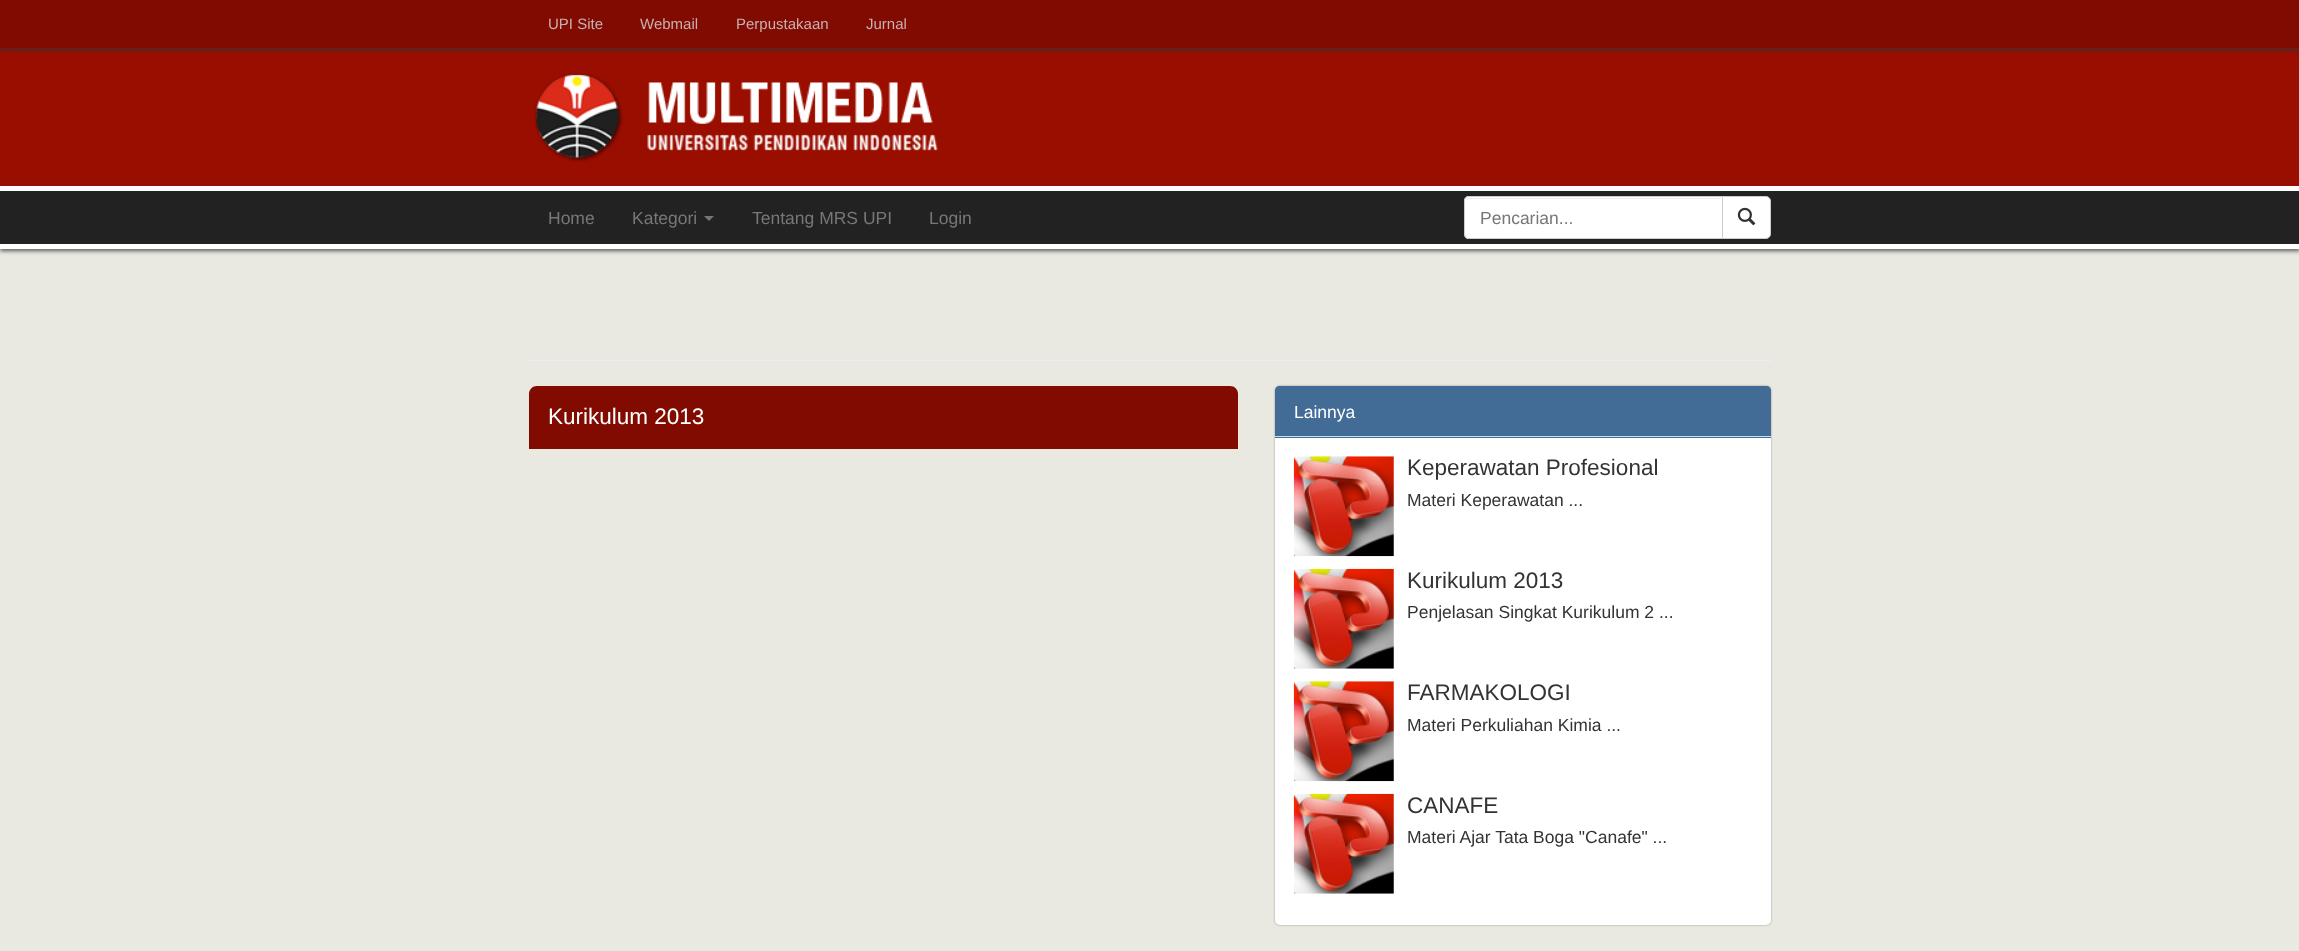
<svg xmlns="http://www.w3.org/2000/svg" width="2299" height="951">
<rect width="100%" height="100%" fill="#eae9e1"/>
<rect y="48" width="2299" height="138" fill="#9a0e00"/>
<rect y="3" width="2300" height="47" fill="#323232c9" filter="blur(2px)"/>
<rect width="2299" height="48" fill="#810b00"/>
<text x="548" y="29" style="font-family:Liberation Sans;font-size:15px;fill:#c6b1b1">UPI Site</text>
<text x="640" y="29" style="font-family:Liberation Sans;font-size:15px;fill:#c6b1b1">Webmail</text>
<text x="736" y="29" style="font-family:Liberation Sans;font-size:15px;fill:#c6b1b1">Perpustakaan</text>
<text x="866" y="29" style="font-family:Liberation Sans;font-size:15px;fill:#c6b1b1">Jurnal</text>
<image x="534" y="73" width="404" height="89" href="media/1.png"/>
<rect y="189" width="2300" height="62" fill="#323232c9" filter="blur(2px)"/>
<rect y="191" width="2299" height="53" fill="#222"/>
<rect y="186" width="2299" height="5" fill="#fff"/>
<rect y="244" width="2299" height="5" fill="#fff"/>
<text x="548" y="224" style="font-family:Liberation Sans;font-size:17.5px;fill:#777">Home</text>
<text x="632" y="224" style="font-family:Liberation Sans;font-size:17.5px;fill:#777">Kategori</text>
<path d="M704 216h10l-5 5z" fill="#777"/>
<text x="752" y="224" style="font-family:Liberation Sans;font-size:17.5px;fill:#777">Tentang MRS UPI</text>
<text x="929" y="224" style="font-family:Liberation Sans;font-size:17.5px;fill:#777">Login</text>
<path d="M1721.5 196.5h44.5c2.5 0 4.5 2 4.5 4.5v33c0 2.5-2 4.5-4.5 4.5h-44.5z" fill="#fff" stroke="#ccc"/>
<path d="M1469 196h254v43h-254c-3 0-5-2-5-5v-33c0-3 2-5 5-5z" fill="#fff"/>
<path d="M1469 199h252v-1h-252c-2 0-4 2-4 4c0-2 2-3 4-3z" fill="#ececec"/>
<path d="M1469 196.5h253.5v42h-253.5c-2.5 0-4.5-2-4.5-4.5v-33c0-2.5 2-4.5 4.5-4.5z" fill="none" stroke="#ccc"/>
<text x="1480" y="224" style="font-family:Liberation Sans;font-size:17.5px;fill:#777">Pencarian...</text>
<image x="1737" y="207" width="19" height="19" href="media/2.png"/>
<rect x="529" y="360" width="1242" height="1" fill="#eee"/>
<path d="M537 386h693c4.5 0 8 3.5 8 8v55h-709v-55c0-4.5 3.5-8 8-8z" fill="#810b00"/>
<text x="548" y="424" style="font-family:Liberation Sans;font-size:22.5px;fill:#fff">Kurikulum 2013</text>
<rect x="1275" y="386" width="496" height="539" rx="5" fill="#3232326e" filter="blur(1px)"/>
<rect x="1275" y="386" width="496" height="539" rx="5" fill="#fff"/>
<path d="M1279 386h488c2 0 4 2 4 4v48h-496v-48c0-2 2-4 4-4z" fill="#426c96"/>
<rect x="1275" y="436" width="496" height="1" fill="#bce8f1"/>
<text x="1294" y="418" style="font-family:Liberation Sans;font-size:17.5px;fill:#fff">Lainnya</text>
<image x="1293" y="456" width="101" height="101" href="media/3.png"/>
<text x="1407" y="475" style="font-family:Liberation Sans;font-size:22.5px;fill:#333">Keperawatan Profesional</text>
<text x="1407" y="506" style="font-family:Liberation Sans;font-size:17.5px;fill:#333">Materi Keperawatan ...</text>
<image x="1293" y="568" width="101" height="101" href="media/4.png"/>
<text x="1407" y="588" style="font-family:Liberation Sans;font-size:22.5px;fill:#333">Kurikulum 2013</text>
<text x="1407" y="618" style="font-family:Liberation Sans;font-size:17.5px;fill:#333">Penjelasan Singkat Kurikulum 2 ...</text>
<image x="1293" y="681" width="101" height="101" href="media/3.png"/>
<text x="1407" y="700" style="font-family:Liberation Sans;font-size:22.5px;fill:#333">FARMAKOLOGI</text>
<text x="1407" y="731" style="font-family:Liberation Sans;font-size:17.5px;fill:#333">Materi Perkuliahan Kimia ...</text>
<image x="1293" y="793" width="101" height="101" href="media/5.png"/>
<text x="1407" y="813" style="font-family:Liberation Sans;font-size:22.5px;fill:#333">CANAFE</text>
<text x="1407" y="843" style="font-family:Liberation Sans;font-size:17.5px;fill:#333">Materi Ajar Tata Boga "Canafe" ...</text>
</svg>
